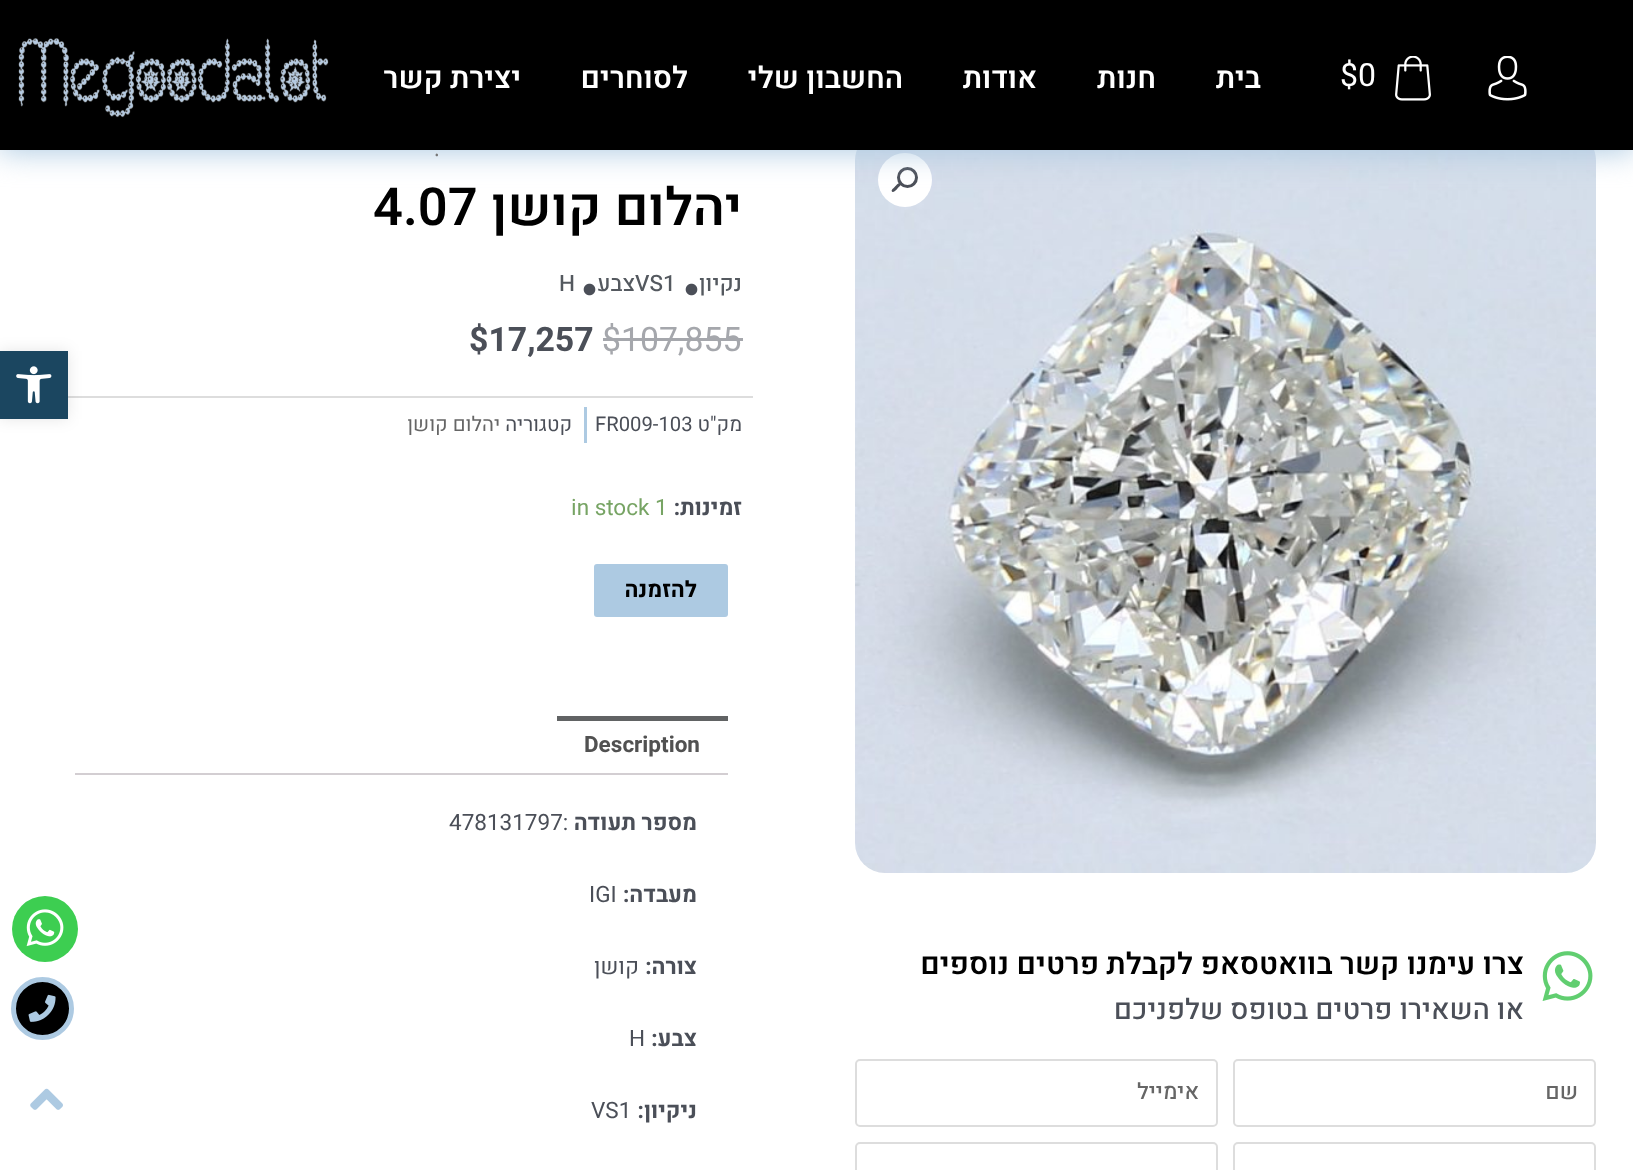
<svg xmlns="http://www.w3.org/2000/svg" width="1633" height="1170">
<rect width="100%" height="100%" fill="#fff"/>
<image x="855" y="150" width="741" height="723" href="media/4.png"/>
<circle cx="905" cy="180" r="27" fill="#fff"/>
<circle cx="907.5" cy="177.5" r="9" fill="none" stroke="#4b4f58" stroke-width="3"/>
<path d="M900.5 183.5c1.5 1.5-2.5 4-3 5c-1 1-4 5-5.5 3c-1.5-1.5 2.5-4 3-5c1-1 4-5 5.5-3z" fill="#4b4f58"/>
<rect x="-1" y="-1" width="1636" height="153" fill="#adcae2" filter="blur(15px)"/>
<rect width="1633" height="150" fill="#000"/>
<image x="1488" y="56" width="39" height="45" href="media/1.png"/>
<image x="1395" y="56" width="36" height="45" href="media/2.png"/>
<text x="1340" y="86" style="font-family:Heebo;font-size:32px;fill:#fff">$0</text>
<text x="1261" y="88" style="font-family:Heebo;font-size:30px;font-weight:600;direction:rtl;fill:#fff">בית</text>
<text x="1156" y="88" style="font-family:Heebo;font-size:30px;font-weight:600;direction:rtl;fill:#fff">חנות</text>
<text x="1037" y="88" style="font-family:Heebo;font-size:30px;font-weight:600;direction:rtl;fill:#fff">אודות</text>
<text x="903" y="88" style="font-family:Heebo;font-size:30px;font-weight:600;direction:rtl;fill:#fff">החשבון שלי</text>
<text x="688" y="88" style="font-family:Heebo;font-size:30px;font-weight:600;direction:rtl;fill:#fff">לסוחרים</text>
<text x="521" y="88" style="font-family:Heebo;font-size:30px;font-weight:600;direction:rtl;fill:#fff">יצירת קשר</text>
<image x="18" y="38" width="311" height="80" href="media/3.png"/>
<image x="1542" y="951" width="51" height="50" href="media/5.png"/>
<text x="1524" y="974" style="font-family:Heebo;font-size:30px;font-weight:600;direction:rtl;fill:#000">צרו עימנו קשר בוואטסאפ לקבלת פרטים נוספים</text>
<text x="1524" y="1019" style="font-family:Heebo;font-size:28.5px;font-weight:500;direction:rtl;fill:#4b4f58">או השאירו פרטים בטופס שלפניכם</text>
<rect x="1234" y="1060" width="361" height="66" rx="4" fill="none" stroke="#ddd" stroke-width="2"/>
<text x="1578" y="1099" style="font-family:Heebo;font-size:22.5px;font-weight:500;direction:rtl;fill:#666">שם</text>
<rect x="856" y="1060" width="361" height="66" rx="4" fill="none" stroke="#ddd" stroke-width="2"/>
<text x="1199" y="1099" style="font-family:Heebo;font-size:22.5px;font-weight:500;direction:rtl;fill:#666">אימייל</text>
<rect x="1234" y="1143" width="361" height="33" rx="4" fill="none" stroke="#ddd" stroke-width="2"/>
<rect x="856" y="1143" width="361" height="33" rx="4" fill="none" stroke="#ddd" stroke-width="2"/>
<text x="434" y="156" style="font-family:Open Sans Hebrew;font-size:21px;fill:#777">.</text>
<text x="742" y="225" style="font-family:Heebo;font-size:52.5px;font-weight:600;direction:rtl;fill:#000">יהלום קושן</text>
<text x="373" y="225" style="font-family:Heebo;font-size:52.5px;font-weight:600;fill:#000">4.07</text>
<text x="742" y="291" style="font-family:Heebo;font-size:22.5px;font-weight:500;direction:rtl;fill:#54595f">נקיון</text>
<image x="685" y="283" width="13" height="13" href="media/6.png"/>
<text x="635" y="291" style="font-family:Heebo;font-size:22.5px;font-weight:500;fill:#54595f">VS1</text>
<text x="635" y="291" style="font-family:Heebo;font-size:22.5px;font-weight:500;direction:rtl;fill:#54595f">צבע</text>
<image x="583" y="283" width="13" height="13" href="media/6.png"/>
<text x="559" y="291" style="font-family:Heebo;font-size:22.5px;font-weight:500;fill:#54595f">H</text>
<text x="602" y="351" style="font-family:Heebo;font-size:33.75px;fill:#a5a7ac">$107,855</text>
<rect x="603" y="338" width="140" height="3" fill="#a5a7ac"/>
<text x="469" y="351" style="font-family:Heebo;font-size:33.75px;font-weight:bold;fill:#4b4f58">$17,257</text>
<rect x="65" y="396" width="688" height="2" fill="#ddd"/>
<text x="742" y="431" style="font-family:Heebo;font-size:20.25px;direction:rtl;fill:#4b4f58">מק"ט</text>
<text x="595" y="431" style="font-family:Heebo;font-size:20.25px;fill:#4b4f58">FR009-103</text>
<rect x="584" y="407" width="3" height="36" fill="#adcae2"/>
<text x="572" y="431" style="font-family:Heebo;font-size:20.25px;direction:rtl;fill:#4b4f58">קטגוריה</text>
<text x="500" y="431" style="font-family:Heebo;font-size:20.25px;direction:rtl;fill:#666">יהלום קושן</text>
<text x="742" y="515" style="font-family:Heebo;font-size:22.5px;font-weight:bold;direction:rtl;fill:#4b4f58">זמינות:</text>
<text x="571" y="515" style="font-family:Heebo;font-size:22.5px;fill:#77a464">in stock 1</text>
<rect x="594" y="564" width="134" height="53" rx="3" fill="#adcae2"/>
<text x="697" y="597" style="font-family:Heebo;font-size:22.5px;font-weight:bold;direction:rtl;fill:#000">להזמנה</text>
<rect x="557" y="716" width="171" height="5" fill="#616364"/>
<text x="584" y="752" style="font-family:Heebo;font-size:22.5px;font-weight:bold;fill:#515151">Description</text>
<rect x="75" y="773" width="653" height="2" fill="#d3ced2"/>
<text x="697" y="830" style="font-family:Heebo;font-size:22.5px;font-weight:bold;direction:rtl;fill:#4b4f58">מספר תעודה</text>
<text x="449" y="830" style="font-family:Heebo;font-size:22.5px;fill:#4b4f58">478131797:</text>
<text x="697" y="902" style="font-family:Heebo;font-size:22.5px;font-weight:bold;direction:rtl;fill:#4b4f58">מעבדה:</text>
<text x="589" y="902" style="font-family:Heebo;font-size:22.5px;fill:#4b4f58">IGI</text>
<text x="697" y="974" style="font-family:Heebo;font-size:22.5px;font-weight:bold;direction:rtl;fill:#4b4f58">צורה:</text>
<text x="639" y="974" style="font-family:Heebo;font-size:22.5px;direction:rtl;fill:#4b4f58">קושן</text>
<text x="697" y="1046" style="font-family:Heebo;font-size:22.5px;font-weight:bold;direction:rtl;fill:#4b4f58">צבע:</text>
<text x="629" y="1046" style="font-family:Heebo;font-size:22.5px;fill:#4b4f58">H</text>
<text x="697" y="1118" style="font-family:Heebo;font-size:22.5px;font-weight:bold;direction:rtl;fill:#4b4f58">ניקיון:</text>
<text x="591" y="1118" style="font-family:Heebo;font-size:22.5px;fill:#4b4f58">VS1</text>
<circle cx="45" cy="929" r="33" fill="#3dce51"/>
<image x="26" y="909" width="38" height="38" href="media/7.png"/>
<circle cx="42.5" cy="1008.5" r="29" fill="#000" stroke="#adcae2" stroke-width="5"/>
<image x="28" y="994" width="28" height="28" href="media/8.png"/>
<image x="30" y="1088" width="33" height="22" href="media/9.png"/>
<rect y="351" width="68" height="68" fill="#0000001a" filter="blur(7.5px)"/>
<rect y="351" width="68" height="68" fill="#1b4660"/>
<image x="16" y="366" width="36" height="38" href="media/10.png"/>
</svg>
